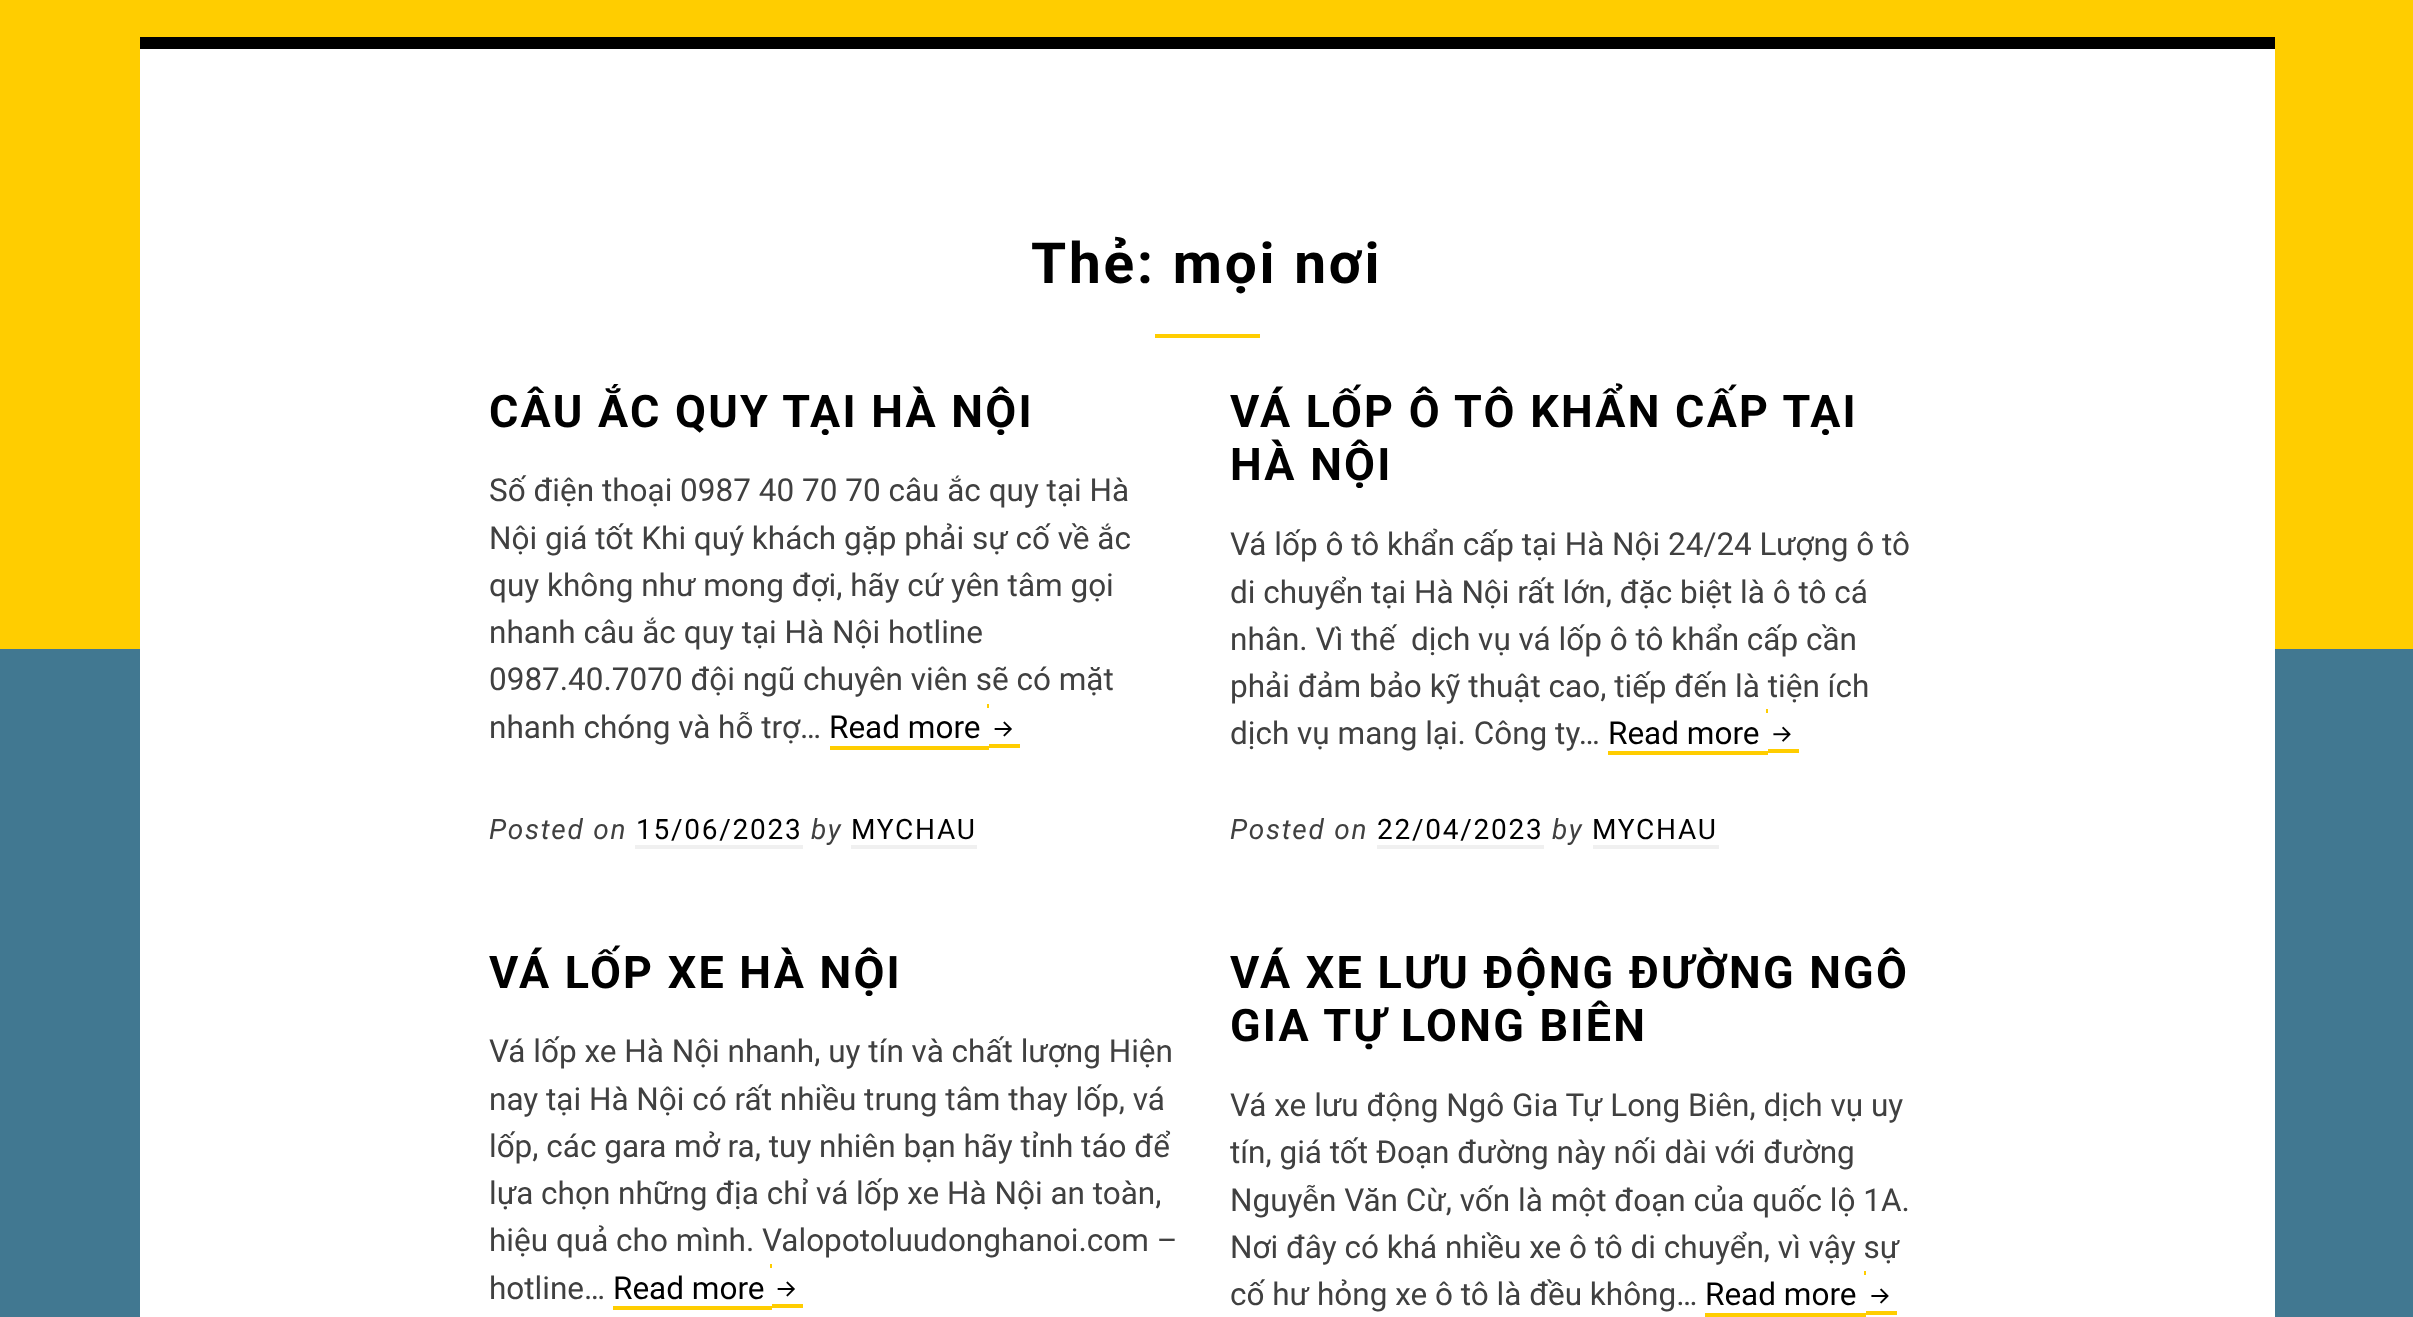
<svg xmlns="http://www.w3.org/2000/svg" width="2413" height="1317">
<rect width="100%" height="100%" fill="#417891"/>
<rect width="2413" height="649" fill="#ffcd00"/>
<rect x="140" y="49" width="2135" height="1268" fill="#fff"/>
<rect x="140" y="37" width="2135" height="12" fill="#000"/>
<text x="1031" y="283" style="font-family:Roboto;font-size:56.75px;font-weight:bold;letter-spacing:2.8px;fill:#000">Thẻ: mọi nơi</text>
<rect x="1155" y="334" width="105" height="4" fill="#ffcd00"/>
<text x="489" y="427" style="font-family:Roboto;font-size:44.9px;font-weight:bold;letter-spacing:2.25px;fill:#000">CÂU ẮC QUY TẠI HÀ NỘI</text>
<text x="489" y="501" style="font-family:Roboto;font-size:31.5px;fill:#404040">Số điện thoại 0987 40 70 70 câu ắc quy tại Hà</text>
<text x="489" y="549" style="font-family:Roboto;font-size:31.5px;fill:#404040">Nội giá tốt Khi quý khách gặp phải sự cố về ắc</text>
<text x="489" y="596" style="font-family:Roboto;font-size:31.5px;fill:#404040">quy không như mong đợi, hãy cứ yên tâm gọi</text>
<text x="489" y="643" style="font-family:Roboto;font-size:31.5px;fill:#404040">nhanh câu ắc quy tại Hà Nội hotline</text>
<text x="489" y="690" style="font-family:Roboto;font-size:31.5px;fill:#404040">0987.40.7070 đội ngũ chuyên viên sẽ có mặt</text>
<text x="489" y="738" style="font-family:Roboto;font-size:31.5px;fill:#404040">nhanh chóng và hỗ trợ…</text>
<rect x="830" y="746" width="159" height="4" fill="#ffcd00"/>
<rect x="987" y="704" width="2" height="4" fill="#ffcd00"/>
<rect x="989" y="744" width="31" height="4" fill="#ffcd00"/>
<text x="829" y="738" style="font-family:Roboto;font-size:31.5px;fill:#000">Read more</text>
<image x="994" y="721" width="18" height="16" href="media/1.png"/>
<text x="489" y="839" style="font-family:Roboto;font-size:28px;font-style:italic;letter-spacing:1.75px;fill:#404040">Posted on</text>
<text x="636" y="839" style="font-family:Roboto;font-size:28px;letter-spacing:1.75px;fill:#000">15/06/2023</text>
<rect x="635" y="845" width="168" height="4" fill="#f0f0f0"/>
<text x="811" y="839" style="font-family:Roboto;font-size:28px;font-style:italic;letter-spacing:1.75px;fill:#404040">by</text>
<text x="851" y="839" style="font-family:Roboto;font-size:28px;letter-spacing:1.75px;fill:#000">MYCHAU</text>
<rect x="851" y="845" width="126" height="4" fill="#f0f0f0"/>
<text x="1230" y="427" style="font-family:Roboto;font-size:44.9px;font-weight:bold;letter-spacing:2.25px;fill:#000">VÁ LỐP Ô TÔ KHẨN CẤP TẠI</text>
<text x="1230" y="480" style="font-family:Roboto;font-size:44.9px;font-weight:bold;letter-spacing:2.25px;fill:#000">HÀ NỘI</text>
<text x="1230" y="555" style="font-family:Roboto;font-size:31.5px;fill:#404040">Vá lốp ô tô khẩn cấp tại Hà Nội 24/24 Lượng ô tô</text>
<text x="1230" y="603" style="font-family:Roboto;font-size:31.5px;fill:#404040">di chuyển tại Hà Nội rất lớn, đặc biệt là ô tô cá</text>
<text x="1230" y="650" style="font-family:Roboto;font-size:31.5px;fill:#404040" xml:space="preserve">nhân. Vì thế  dịch vụ vá lốp ô tô khẩn cấp cần</text>
<text x="1230" y="697" style="font-family:Roboto;font-size:31.5px;fill:#404040">phải đảm bảo kỹ thuật cao, tiếp đến là tiện ích</text>
<text x="1230" y="744" style="font-family:Roboto;font-size:31.5px;fill:#404040">dịch vụ mang lại. Công ty…</text>
<rect x="1608" y="751" width="160" height="4" fill="#ffcd00"/>
<rect x="1766" y="709" width="2" height="4" fill="#ffcd00"/>
<rect x="1768" y="749" width="31" height="4" fill="#ffcd00"/>
<text x="1608" y="744" style="font-family:Roboto;font-size:31.5px;fill:#000">Read more</text>
<image x="1773" y="726" width="18" height="16" href="media/2.png"/>
<text x="1230" y="839" style="font-family:Roboto;font-size:28px;font-style:italic;letter-spacing:1.75px;fill:#404040">Posted on</text>
<text x="1377" y="839" style="font-family:Roboto;font-size:28px;letter-spacing:1.75px;fill:#000">22/04/2023</text>
<rect x="1377" y="845" width="167" height="4" fill="#f0f0f0"/>
<text x="1552" y="839" style="font-family:Roboto;font-size:28px;font-style:italic;letter-spacing:1.75px;fill:#404040">by</text>
<text x="1592" y="839" style="font-family:Roboto;font-size:28px;letter-spacing:1.75px;fill:#000">MYCHAU</text>
<rect x="1593" y="845" width="126" height="4" fill="#f0f0f0"/>
<text x="489" y="988" style="font-family:Roboto;font-size:44.9px;font-weight:bold;letter-spacing:2.25px;fill:#000">VÁ LỐP XE HÀ NỘI</text>
<text x="489" y="1062" style="font-family:Roboto;font-size:31.5px;fill:#404040">Vá lốp xe Hà Nội nhanh, uy tín và chất lượng Hiện</text>
<text x="489" y="1110" style="font-family:Roboto;font-size:31.5px;fill:#404040">nay tại Hà Nội có rất nhiều trung tâm thay lốp, vá</text>
<text x="489" y="1157" style="font-family:Roboto;font-size:31.5px;fill:#404040">lốp, các gara mở ra, tuy nhiên bạn hãy tỉnh táo để</text>
<text x="489" y="1204" style="font-family:Roboto;font-size:31.5px;fill:#404040">lựa chọn những địa chỉ vá lốp xe Hà Nội an toàn,</text>
<text x="489" y="1251" style="font-family:Roboto;font-size:31.5px;fill:#404040">hiệu quả cho mình. Valopotoluudonghanoi.com –</text>
<text x="489" y="1299" style="font-family:Roboto;font-size:31.5px;fill:#404040">hotline…</text>
<rect x="613" y="1306" width="159" height="4" fill="#ffcd00"/>
<rect x="770" y="1264" width="2" height="4" fill="#ffcd00"/>
<rect x="772" y="1304" width="31" height="4" fill="#ffcd00"/>
<text x="613" y="1299" style="font-family:Roboto;font-size:31.5px;fill:#000">Read more</text>
<image x="777" y="1281" width="18" height="16" href="media/1.png"/>
<text x="1230" y="988" style="font-family:Roboto;font-size:44.9px;font-weight:bold;letter-spacing:2.25px;fill:#000">VÁ XE LƯU ĐỘNG ĐƯỜNG NGÔ</text>
<text x="1230" y="1041" style="font-family:Roboto;font-size:44.9px;font-weight:bold;letter-spacing:2.25px;fill:#000">GIA TỰ LONG BIÊN</text>
<text x="1230" y="1116" style="font-family:Roboto;font-size:31.5px;fill:#404040">Vá xe lưu động Ngô Gia Tự Long Biên, dịch vụ uy</text>
<text x="1230" y="1163" style="font-family:Roboto;font-size:31.5px;fill:#404040">tín, giá tốt Đoạn đường này nối dài với đường</text>
<text x="1230" y="1211" style="font-family:Roboto;font-size:31.5px;fill:#404040">Nguyễn Văn Cừ, vốn là một đoạn của quốc lộ 1A.</text>
<text x="1230" y="1258" style="font-family:Roboto;font-size:31.5px;fill:#404040">Nơi đây có khá nhiều xe ô tô di chuyển, vì vậy sự</text>
<text x="1230" y="1305" style="font-family:Roboto;font-size:31.5px;fill:#404040">cố hư hỏng xe ô tô là đều không…</text>
<rect x="1705" y="1313" width="161" height="4" fill="#ffcd00"/>
<rect x="1864" y="1271" width="2" height="4" fill="#ffcd00"/>
<rect x="1866" y="1311" width="31" height="4" fill="#ffcd00"/>
<text x="1705" y="1305" style="font-family:Roboto;font-size:31.5px;fill:#000">Read more</text>
<image x="1871" y="1288" width="18" height="16" href="media/3.png"/>
</svg>
